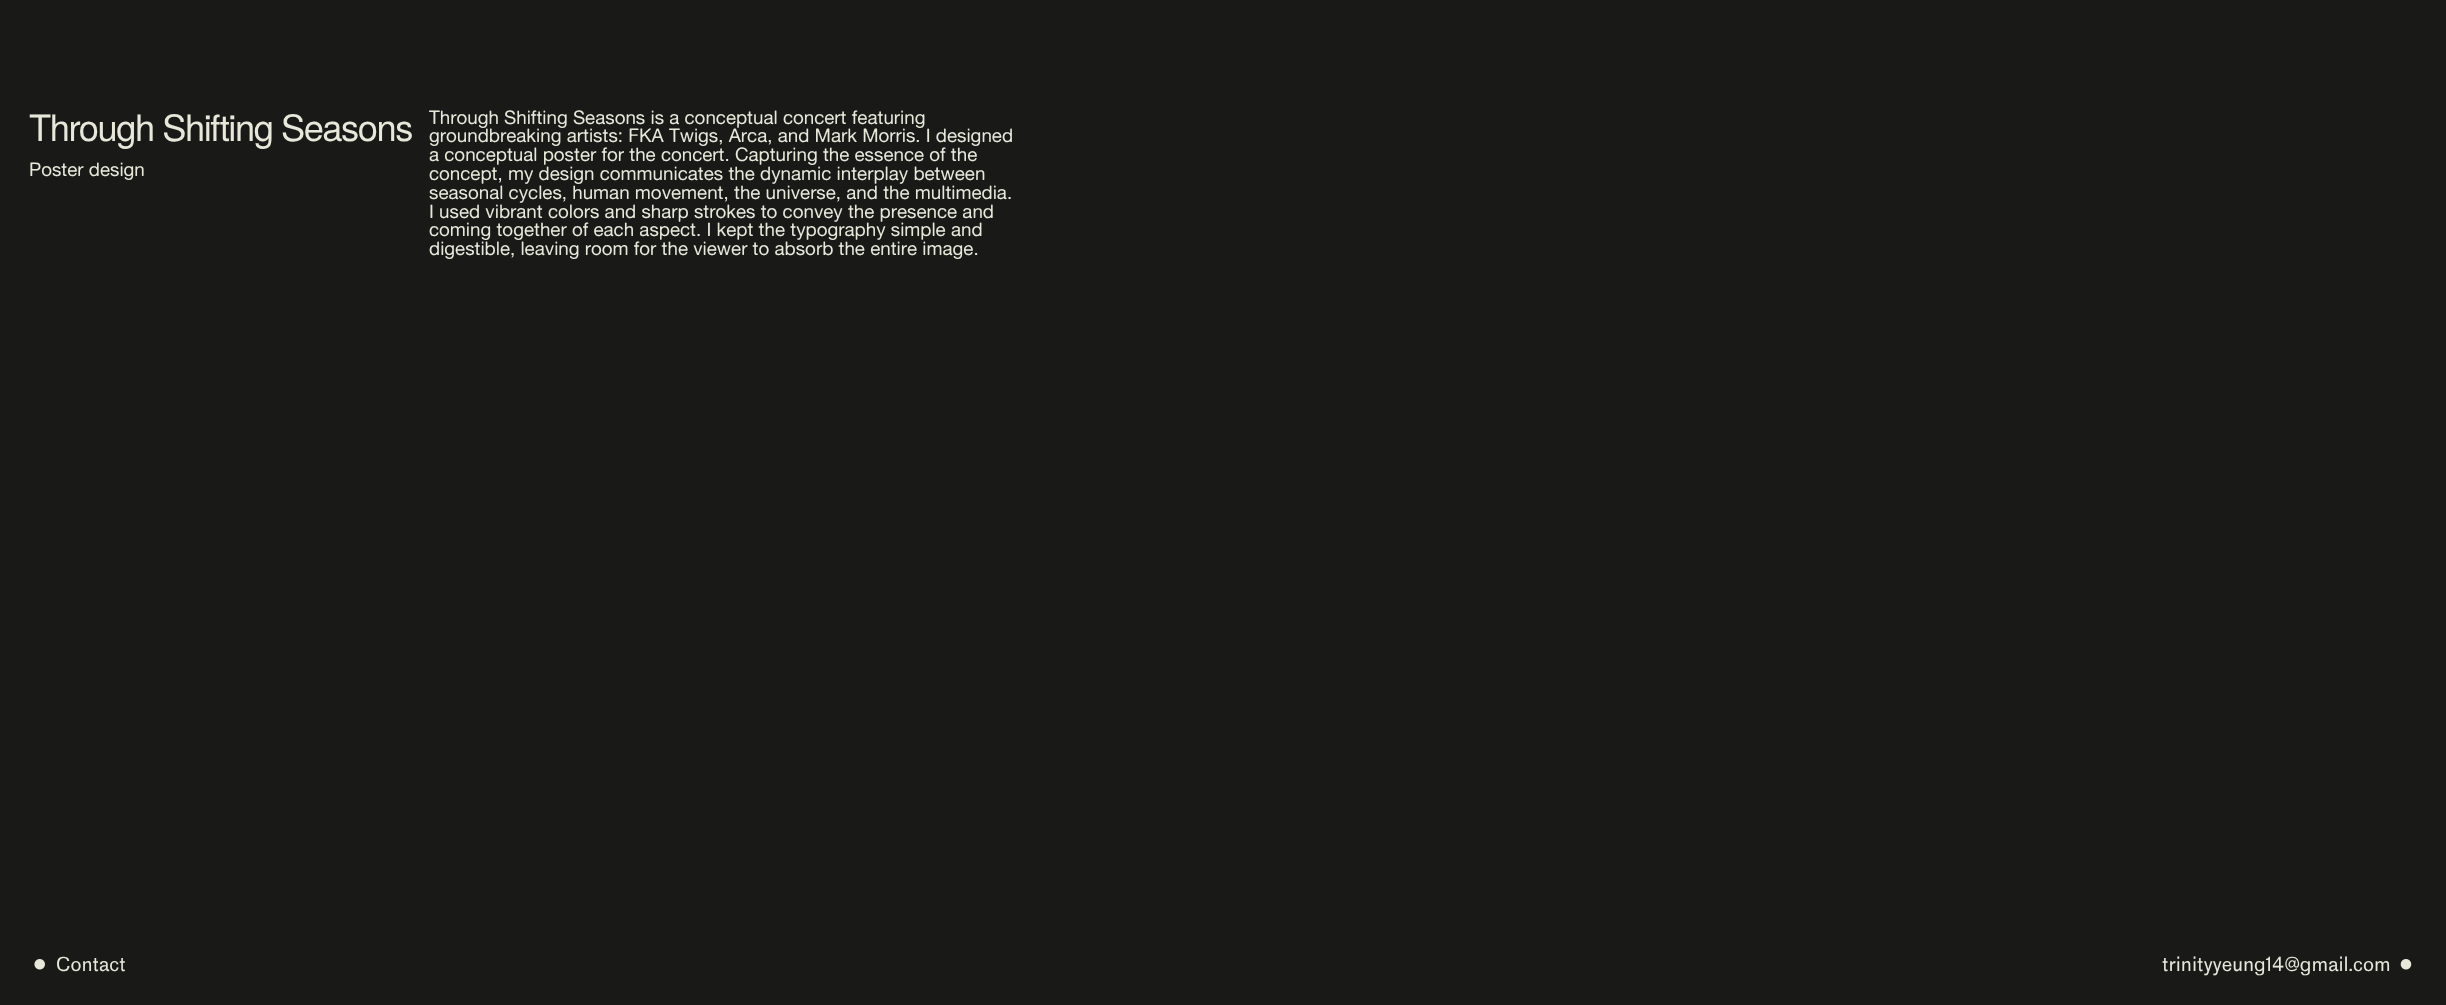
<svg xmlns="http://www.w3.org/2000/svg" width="2446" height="1005">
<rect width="100%" height="100%" fill="#191918"/>
<text x="29" y="141" style="font-family:TeX Gyre Heros;font-size:36.25px;letter-spacing:-1.45px;fill:#e7e8da">Through Shifting Seasons</text>
<text x="29" y="176" style="font-family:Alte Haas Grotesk;font-size:18.8px;fill:#e7e8da">Poster design</text>
<text x="429" y="124" style="font-family:Alte Haas Grotesk;font-size:18.8px;fill:#e7e8da">Through Shifting Seasons is a conceptual concert featuring</text>
<text x="429" y="142" style="font-family:Alte Haas Grotesk;font-size:18.8px;fill:#e7e8da">groundbreaking artists: FKA Twigs, Arca, and Mark Morris. I designed</text>
<text x="429" y="161" style="font-family:Alte Haas Grotesk;font-size:18.8px;fill:#e7e8da">a conceptual poster for the concert. Capturing the essence of the</text>
<text x="429" y="180" style="font-family:Alte Haas Grotesk;font-size:18.8px;fill:#e7e8da">concept, my design communicates the dynamic interplay between</text>
<text x="429" y="199" style="font-family:Alte Haas Grotesk;font-size:18.8px;fill:#e7e8da">seasonal cycles, human movement, the universe, and the multimedia.</text>
<text x="429" y="218" style="font-family:Alte Haas Grotesk;font-size:18.8px;fill:#e7e8da">I used vibrant colors and sharp strokes to convey the presence and</text>
<text x="429" y="236" style="font-family:Alte Haas Grotesk;font-size:18.8px;fill:#e7e8da">coming together of each aspect. I kept the typography simple and</text>
<text x="429" y="255" style="font-family:Alte Haas Grotesk;font-size:18.8px;fill:#e7e8da">digestible, leaving room for the viewer to absorb the entire image.</text>
<image x="34" y="959" width="11" height="11" href="media/1.png"/>
<text x="56" y="971" style="font-family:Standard;font-size:18.8px;fill:#e7e8da">Contact</text>
<text x="2162" y="971" style="font-family:Standard;font-size:18.8px;fill:#e7e8da">trinityyeung14@gmail.com</text>
<image x="2400" y="959" width="12" height="11" href="media/2.png"/>
</svg>
